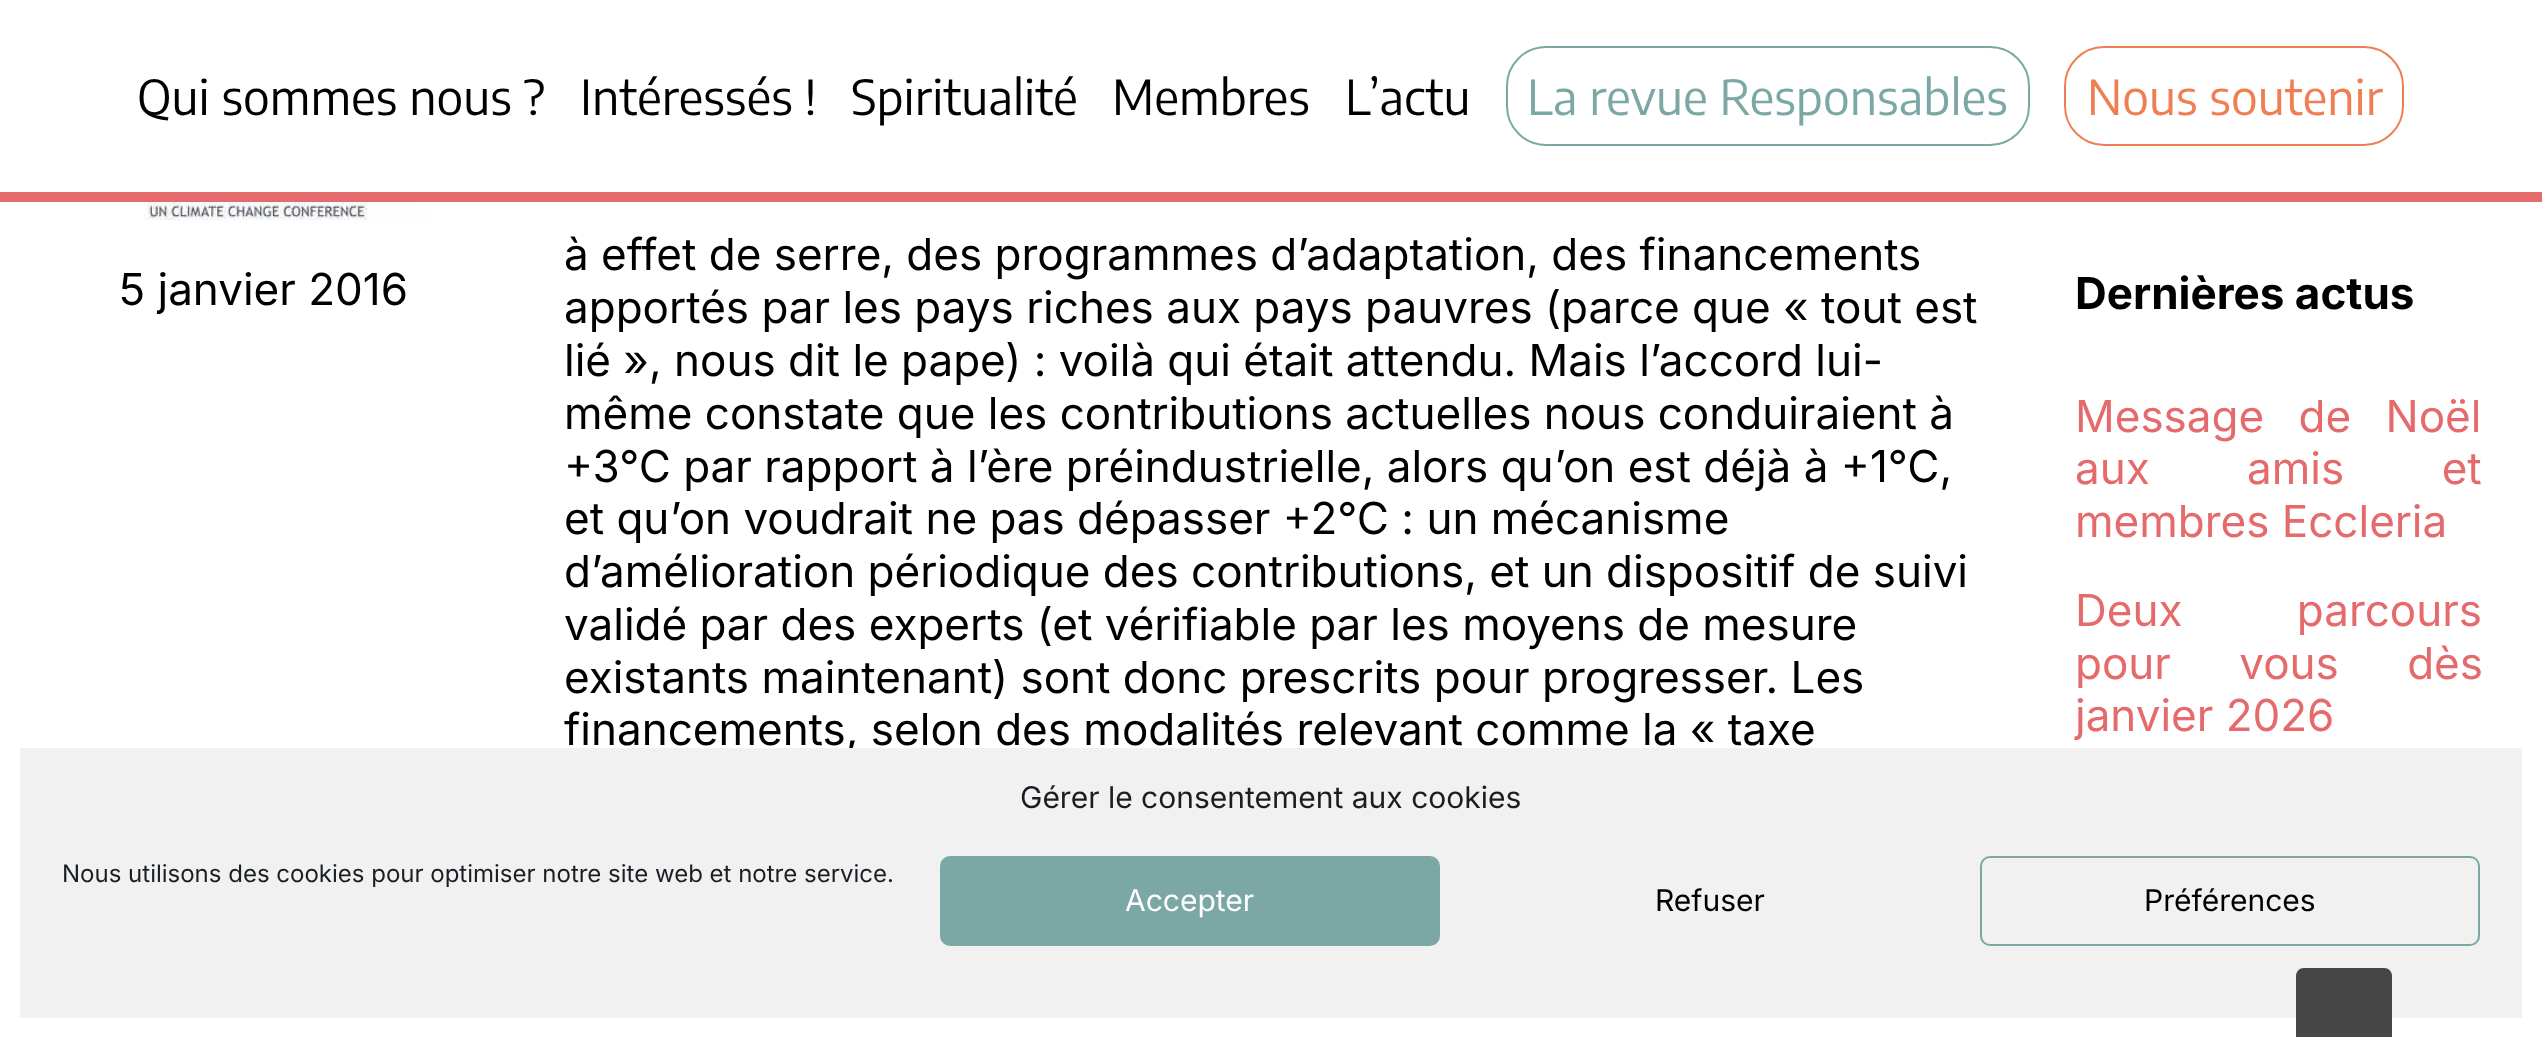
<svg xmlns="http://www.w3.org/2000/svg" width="2542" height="1037">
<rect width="100%" height="100%" fill="#fff"/>
<rect y="192" width="2542" height="10" fill="#e56a6c"/>
<text x="137" y="115" style="font-family:Encode Sans Condensed;font-size:48px;fill:#000">Qui sommes nous ?</text>
<text x="580" y="115" style="font-family:Encode Sans Condensed;font-size:48px;fill:#000">Intéressés !</text>
<text x="851" y="115" style="font-family:Encode Sans Condensed;font-size:48px;fill:#000">Spiritualité</text>
<text x="1112" y="115" style="font-family:Encode Sans Condensed;font-size:48px;fill:#000">Membres</text>
<text x="1345" y="115" style="font-family:Encode Sans Condensed;font-size:48px;fill:#000">L’actu</text>
<rect x="1507" y="47" width="522" height="98" rx="39" fill="none" stroke="#7ba8a5" stroke-width="2"/>
<text x="1527" y="115" style="font-family:Encode Sans Condensed;font-size:48px;fill:#7ba8a5">La revue Responsables</text>
<rect x="2065" y="47" width="338" height="98" rx="39" fill="none" stroke="#ef7e53" stroke-width="2"/>
<text x="2087" y="115" style="font-family:Encode Sans Condensed;font-size:48px;fill:#ef7e53">Nous soutenir</text>
<image x="143" y="202" width="313" height="20" href="media/1.png"/>
<text x="119" y="305" style="font-family:Inter;font-size:44px;fill:#000">5 janvier 2016</text>
<text x="564" y="270" style="font-family:Inter;font-size:44px;fill:#000">à effet de serre, des programmes d’adaptation, des financements</text>
<text x="564" y="323" style="font-family:Inter;font-size:44px;fill:#000">apportés par les pays riches aux pays pauvres (parce que « tout est</text>
<text x="564" y="376" style="font-family:Inter;font-size:44px;fill:#000">lié », nous dit le pape) : voilà qui était attendu. Mais l’accord lui-</text>
<text x="564" y="429" style="font-family:Inter;font-size:44px;fill:#000">même constate que les contributions actuelles nous conduiraient à</text>
<text x="564" y="482" style="font-family:Inter;font-size:44px;fill:#000">+3°C par rapport à l’ère préindustrielle, alors qu’on est déjà à +1°C,</text>
<text x="564" y="534" style="font-family:Inter;font-size:44px;fill:#000">et qu’on voudrait ne pas dépasser +2°C : un mécanisme</text>
<text x="564" y="587" style="font-family:Inter;font-size:44px;fill:#000">d’amélioration périodique des contributions, et un dispositif de suivi</text>
<text x="564" y="640" style="font-family:Inter;font-size:44px;fill:#000">validé par des experts (et vérifiable par les moyens de mesure</text>
<text x="564" y="693" style="font-family:Inter;font-size:44px;fill:#000">existants maintenant) sont donc prescrits pour progresser. Les</text>
<text x="564" y="745" style="font-family:Inter;font-size:44px;fill:#000">financements, selon des modalités relevant comme la « taxe</text>
<text x="2075" y="309" style="font-family:Inter;font-size:44px;font-weight:bold;fill:#000">Dernières actus</text>
<text x="2075" y="432" word-spacing="22" style="font-family:Inter;font-size:44px;fill:#e56a6c">Message de Noël</text>
<text x="2075" y="484" word-spacing="85" style="font-family:Inter;font-size:44px;fill:#e56a6c">aux amis et</text>
<text x="2075" y="537" style="font-family:Inter;font-size:44px;fill:#e56a6c">membres Eccleria</text>
<text x="2075" y="626" word-spacing="102" style="font-family:Inter;font-size:44px;fill:#e56a6c">Deux parcours</text>
<text x="2075" y="679" word-spacing="56" style="font-family:Inter;font-size:44px;fill:#e56a6c">pour vous dès</text>
<text x="2075" y="731" style="font-family:Inter;font-size:44px;fill:#e56a6c">janvier 2026</text>
<rect x="20" y="748" width="2502" height="270" fill="#f1f1f1"/>
<text x="1020" y="808" style="font-family:Inter;font-size:30px;fill:#191e23">Gérer le consentement aux cookies</text>
<text x="62" y="882" style="font-family:Inter;font-size:24px;fill:#191e23">Nous utilisons des cookies pour optimiser notre site web et notre service.</text>
<rect x="941" y="857" width="498" height="88" rx="9" fill="#7ba8a5" stroke="#7ba8a5" stroke-width="2"/>
<text x="1125" y="911" style="font-family:Inter;font-size:30px;fill:#fff">Accepter</text>
<text x="1655" y="911" style="font-family:Inter;font-size:30px;fill:#000">Refuser</text>
<rect x="1981" y="857" width="498" height="88" rx="9" fill="none" stroke="#7ba8a5" stroke-width="2"/>
<text x="2144" y="911" style="font-family:Inter;font-size:30px;fill:#000">Préférences</text>
<path d="M2304 968h80c4.5 0 8 3.5 8 8v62h-96v-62c0-4.5 3.5-8 8-8z" fill="#333333e6"/>
</svg>
